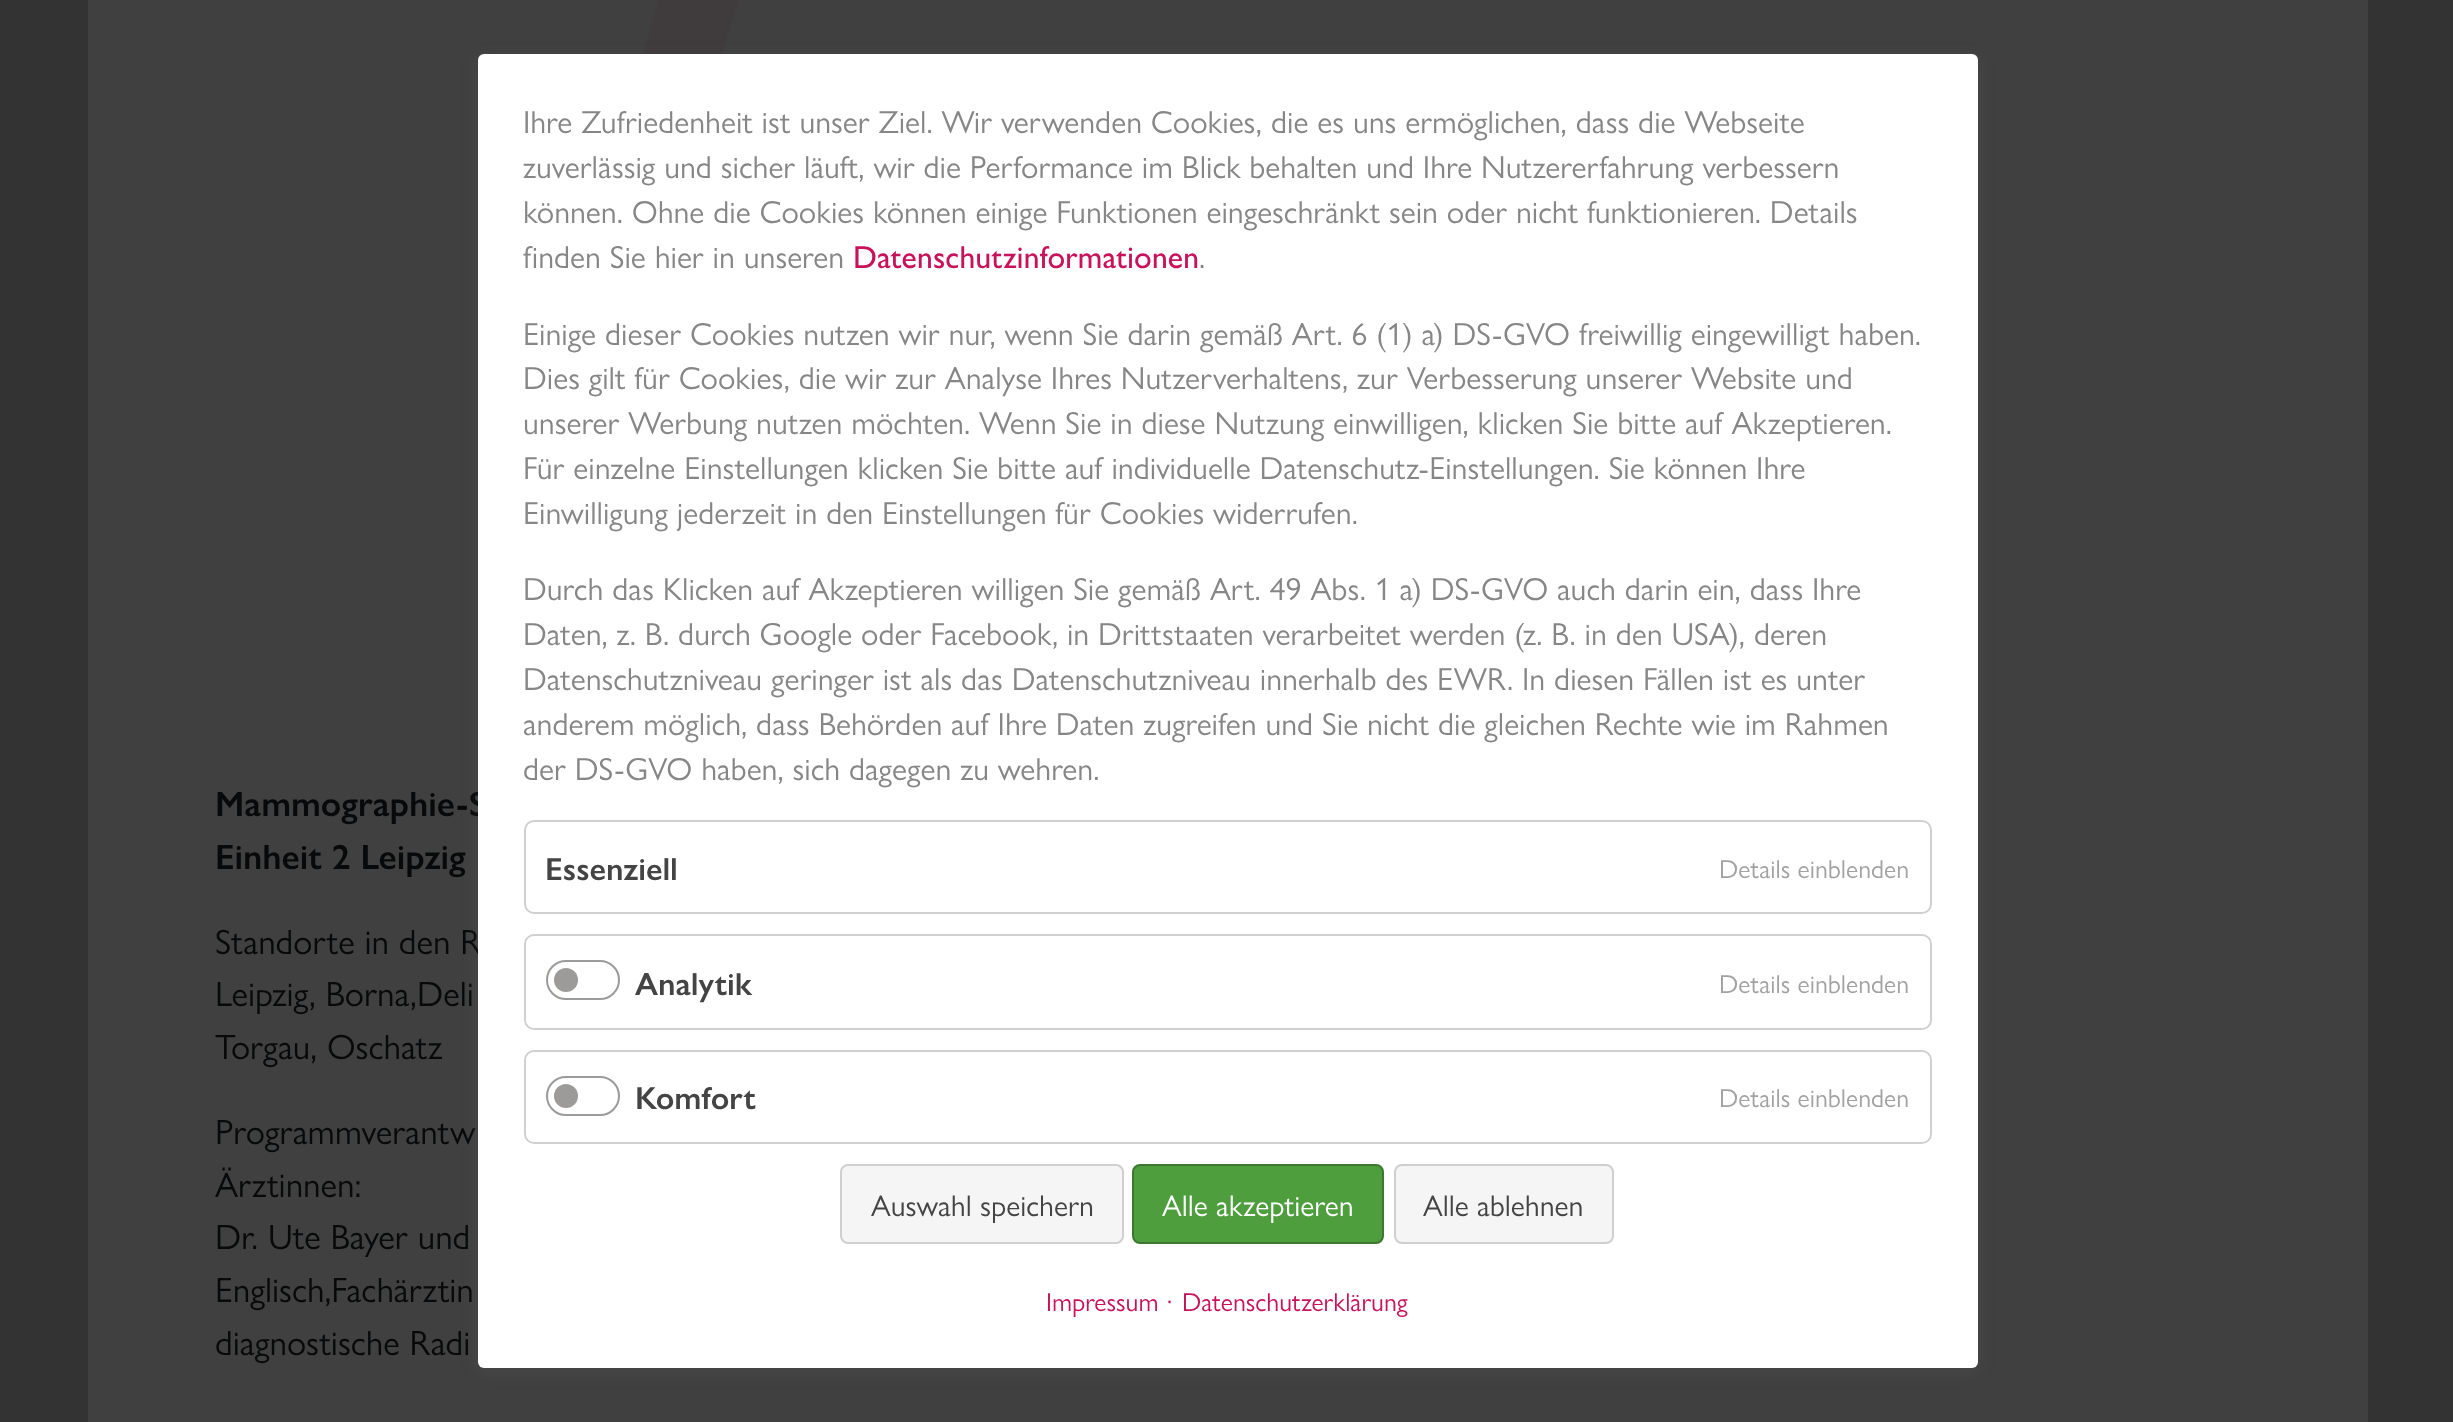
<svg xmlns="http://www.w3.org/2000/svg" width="2453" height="1422">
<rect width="100%" height="100%" fill="#333"/>
<rect x="88" width="2280" height="1422" fill="#404040"/>
<image x="644" y="0" width="95" height="54" href="media/1.png"/>
<text x="215" y="816" style="font-family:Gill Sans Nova;font-size:35.25px;font-weight:600;fill:#08090a">Mammographie-S</text>
<text x="215" y="869" style="font-family:Gill Sans Nova;font-size:35.25px;font-weight:600;fill:#08090a">Einheit 2 Leipzig</text>
<text x="215" y="954" style="font-family:Gill Sans Nova;font-size:35.25px;fill:#08090a">Standorte in den R</text>
<text x="215" y="1006" style="font-family:Gill Sans Nova;font-size:35.25px;fill:#08090a">Leipzig, Borna,Deli</text>
<text x="215" y="1059" style="font-family:Gill Sans Nova;font-size:35.25px;fill:#08090a">Torgau, Oschatz</text>
<text x="215" y="1144" style="font-family:Gill Sans Nova;font-size:35.25px;fill:#08090a">Programmverantw</text>
<text x="215" y="1197" style="font-family:Gill Sans Nova;font-size:35.25px;fill:#08090a">Ärztinnen:</text>
<text x="215" y="1249" style="font-family:Gill Sans Nova;font-size:35.25px;fill:#08090a">Dr. Ute Bayer und</text>
<text x="215" y="1302" style="font-family:Gill Sans Nova;font-size:35.25px;fill:#08090a">Englisch,Fachärztin</text>
<text x="215" y="1355" style="font-family:Gill Sans Nova;font-size:35.25px;fill:#08090a">diagnostische Radi</text>
<rect x="478" y="58" width="1500" height="1314" rx="6" fill="#63636333" filter="blur(8px)"/>
<rect x="478" y="54" width="1500" height="1314" rx="6" fill="#fff"/>
<text x="523" y="133" style="font-family:Gill Sans Nova;font-size:32px;fill:#868686">Ihre Zufriedenheit ist unser Ziel. Wir verwenden Cookies, die es uns ermöglichen, dass die Webseite</text>
<text x="523" y="178" style="font-family:Gill Sans Nova;font-size:32px;fill:#868686">zuverlässig und sicher läuft, wir die Performance im Blick behalten und Ihre Nutzererfahrung verbessern</text>
<text x="523" y="223" style="font-family:Gill Sans Nova;font-size:32px;fill:#868686">können. Ohne die Cookies können einige Funktionen eingeschränkt sein oder nicht funktionieren. Details</text>
<text x="523" y="268" style="font-family:Gill Sans Nova;font-size:32px;fill:#868686">finden Sie hier in unseren</text>
<text x="853" y="268" style="font-family:Gill Sans Nova;font-size:32px;font-weight:500;fill:#c8125c">Datenschutzinformationen</text>
<text x="1199" y="268" style="font-family:Gill Sans Nova;font-size:32px;fill:#868686">.</text>
<text x="523" y="345" style="font-family:Gill Sans Nova;font-size:32px;fill:#868686">Einige dieser Cookies nutzen wir nur, wenn Sie darin gemäß Art. 6 (1) a) DS-GVO freiwillig eingewilligt haben.</text>
<text x="523" y="389" style="font-family:Gill Sans Nova;font-size:32px;fill:#868686">Dies gilt für Cookies, die wir zur Analyse Ihres Nutzerverhaltens, zur Verbesserung unserer Website und</text>
<text x="523" y="434" style="font-family:Gill Sans Nova;font-size:32px;fill:#868686">unserer Werbung nutzen möchten. Wenn Sie in diese Nutzung einwilligen, klicken Sie bitte auf Akzeptieren.</text>
<text x="523" y="479" style="font-family:Gill Sans Nova;font-size:32px;fill:#868686">Für einzelne Einstellungen klicken Sie bitte auf individuelle Datenschutz-Einstellungen. Sie können Ihre</text>
<text x="523" y="524" style="font-family:Gill Sans Nova;font-size:32px;fill:#868686">Einwilligung jederzeit in den Einstellungen für Cookies widerrufen.</text>
<text x="523" y="600" style="font-family:Gill Sans Nova;font-size:32px;fill:#868686">Durch das Klicken auf Akzeptieren willigen Sie gemäß Art. 49 Abs. 1 a) DS-GVO auch darin ein, dass Ihre</text>
<text x="523" y="645" style="font-family:Gill Sans Nova;font-size:32px;fill:#868686">Daten, z. B. durch Google oder Facebook, in Drittstaaten verarbeitet werden (z. B. in den USA), deren</text>
<text x="523" y="690" style="font-family:Gill Sans Nova;font-size:32px;fill:#868686">Datenschutzniveau geringer ist als das Datenschutzniveau innerhalb des EWR. In diesen Fällen ist es unter</text>
<text x="523" y="735" style="font-family:Gill Sans Nova;font-size:32px;fill:#868686">anderem möglich, dass Behörden auf Ihre Daten zugreifen und Sie nicht die gleichen Rechte wie im Rahmen</text>
<text x="523" y="780" style="font-family:Gill Sans Nova;font-size:32px;fill:#868686">der DS-GVO haben, sich dagegen zu wehren.</text>
<rect x="525" y="821" width="1406" height="92" rx="9" fill="none" stroke="#d0d0d0" stroke-width="2"/>
<text x="545" y="880" style="font-family:Gill Sans Nova;font-size:32px;font-weight:600;fill:#444">Essenziell</text>
<text x="1719" y="878" style="font-family:Gill Sans Nova;font-size:26px;fill:#a2a2a2">Details einblenden</text>
<rect x="525" y="935" width="1406" height="94" rx="9" fill="none" stroke="#d0d0d0" stroke-width="2"/>
<rect x="547" y="961" width="72" height="38" rx="19" fill="none" stroke="#9c9b99" stroke-width="2"/>
<circle cx="566" cy="980" r="12" fill="#9c9b99"/>
<text x="635" y="995" style="font-family:Gill Sans Nova;font-size:32px;font-weight:600;fill:#444">Analytik</text>
<text x="1719" y="993" style="font-family:Gill Sans Nova;font-size:26px;fill:#a2a2a2">Details einblenden</text>
<rect x="525" y="1051" width="1406" height="92" rx="9" fill="none" stroke="#d0d0d0" stroke-width="2"/>
<rect x="547" y="1077" width="72" height="38" rx="19" fill="none" stroke="#9c9b99" stroke-width="2"/>
<circle cx="566" cy="1096" r="12" fill="#9c9b99"/>
<text x="635" y="1109" style="font-family:Gill Sans Nova;font-size:32px;font-weight:600;fill:#444">Komfort</text>
<text x="1719" y="1107" style="font-family:Gill Sans Nova;font-size:26px;fill:#a2a2a2">Details einblenden</text>
<rect x="841" y="1165" width="282" height="78" rx="7" fill="#f5f5f5" stroke="#cfcfcf" stroke-width="2"/>
<text x="871" y="1216" style="font-family:Gill Sans Nova;font-size:30px;fill:#444">Auswahl speichern</text>
<rect x="1133" y="1165" width="250" height="78" rx="7" fill="#4e9e3e" stroke="#3e7830" stroke-width="2"/>
<text x="1162" y="1216" style="font-family:Gill Sans Nova;font-size:30px;fill:#fff">Alle akzeptieren</text>
<rect x="1395" y="1165" width="218" height="78" rx="7" fill="#f5f5f5" stroke="#cfcfcf" stroke-width="2"/>
<text x="1423" y="1216" style="font-family:Gill Sans Nova;font-size:30px;fill:#444">Alle ablehnen</text>
<text x="1046" y="1311" style="font-family:Gill Sans Nova;font-size:26px;fill:#c8125c">Impressum</text>
<text x="1167" y="1311" style="font-family:Gill Sans Nova;font-size:26px;fill:#c8125c">·</text>
<text x="1182" y="1311" style="font-family:Gill Sans Nova;font-size:26px;fill:#c8125c">Datenschutzerklärung</text>
</svg>
